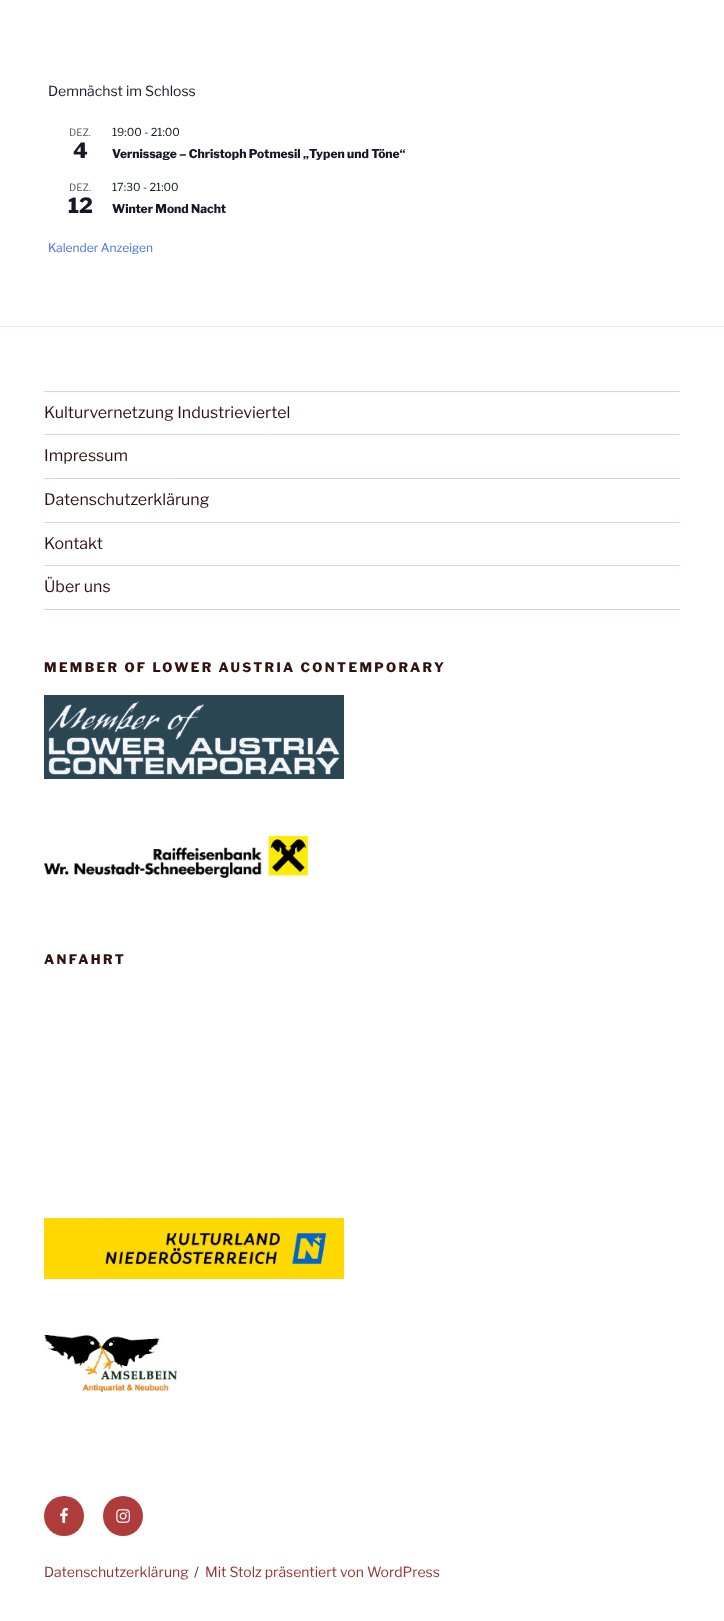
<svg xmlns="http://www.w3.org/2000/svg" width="724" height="1621">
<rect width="100%" height="100%" fill="#fff"/>
<text x="48" y="96" style="font-family:Libre Franklin;font-size:14px;font-weight:100;fill:#141827">Demnächst im Schloss</text>
<text x="69" y="136" style="font-family:Libre Franklin;font-size:10px;font-weight:100;fill:#5d5d5d">DEZ.</text>
<text x="73" y="158" style="font-family:'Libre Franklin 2';font-size:21px;font-weight:100;fill:#141827">4</text>
<text x="112" y="136" style="font-family:Libre Franklin;font-size:11px;font-weight:100;fill:#141827">19:00 - 21:00</text>
<text x="112" y="158" style="font-family:'Libre Franklin 2';font-size:12px;font-weight:100;fill:#141827">Vernissage – Christoph Potmesil „Typen und Töne“</text>
<text x="69" y="191" style="font-family:Libre Franklin;font-size:10px;font-weight:100;fill:#5d5d5d">DEZ.</text>
<text x="68" y="213" style="font-family:'Libre Franklin 2';font-size:21px;font-weight:100;fill:#141827">12</text>
<text x="112" y="191" style="font-family:Libre Franklin;font-size:11px;font-weight:100;fill:#141827">17:30 - 21:00</text>
<text x="112" y="213" style="font-family:'Libre Franklin 2';font-size:12px;font-weight:100;fill:#141827">Winter Mond Nacht</text>
<text x="48" y="252" style="font-family:Libre Franklin;font-size:12px;font-weight:100;fill:#4774e5">Kalender Anzeigen</text>
<rect y="326" width="724" height="1" fill="#f6e4e4"/>
<rect x="44" y="391" width="636" height="1" fill="#eecdcd"/>
<rect x="44" y="434" width="636" height="1" fill="#eecdcd"/>
<text x="44" y="418" style="font-family:Libre Franklin;font-size:16px;font-weight:100;fill:#321111">Kulturvernetzung Industrieviertel</text>
<rect x="44" y="478" width="636" height="1" fill="#eecdcd"/>
<text x="44" y="461" style="font-family:Libre Franklin;font-size:16px;font-weight:100;fill:#321111">Impressum</text>
<rect x="44" y="522" width="636" height="1" fill="#eecdcd"/>
<text x="44" y="505" style="font-family:Libre Franklin;font-size:16px;font-weight:100;fill:#321111">Datenschutzerklärung</text>
<rect x="44" y="565" width="636" height="1" fill="#eecdcd"/>
<text x="44" y="549" style="font-family:Libre Franklin;font-size:16px;font-weight:100;fill:#321111">Kontakt</text>
<rect x="44" y="609" width="636" height="1" fill="#eecdcd"/>
<text x="44" y="592" style="font-family:Libre Franklin;font-size:16px;font-weight:100;fill:#321111">Über uns</text>
<text x="44" y="672" style="font-family:'Libre Franklin 2';font-size:13px;font-weight:100;letter-spacing:2.35px;fill:#321111">MEMBER OF LOWER AUSTRIA CONTEMPORARY</text>
<image x="44" y="695" width="300" height="84" href="media/1.png"/>
<image x="44" y="836" width="264" height="42" href="media/2.png"/>
<text x="44" y="964" style="font-family:'Libre Franklin 2';font-size:13px;font-weight:100;letter-spacing:2.35px;fill:#321111">ANFAHRT</text>
<image x="44" y="1218" width="300" height="61" href="media/3.png"/>
<image x="44" y="1335" width="133" height="57" href="media/4.png"/>
<circle cx="64" cy="1516" r="20" fill="#b03b3b"/>
<image x="60" y="1508" width="8" height="15" href="media/5.png"/>
<circle cx="123" cy="1516" r="20" fill="#b03b3b"/>
<image x="116" y="1509" width="14" height="14" href="media/6.png"/>
<text x="44" y="1577" style="font-family:Libre Franklin;font-size:14px;font-weight:100;fill:#933">Datenschutzerklärung</text>
<text x="194" y="1577" style="font-family:Libre Franklin;font-size:14px;font-weight:100;fill:#471f1f">/</text>
<text x="205" y="1577" style="font-family:Libre Franklin;font-size:14px;font-weight:100;fill:#933">Mit Stolz präsentiert von WordPress</text>
</svg>
